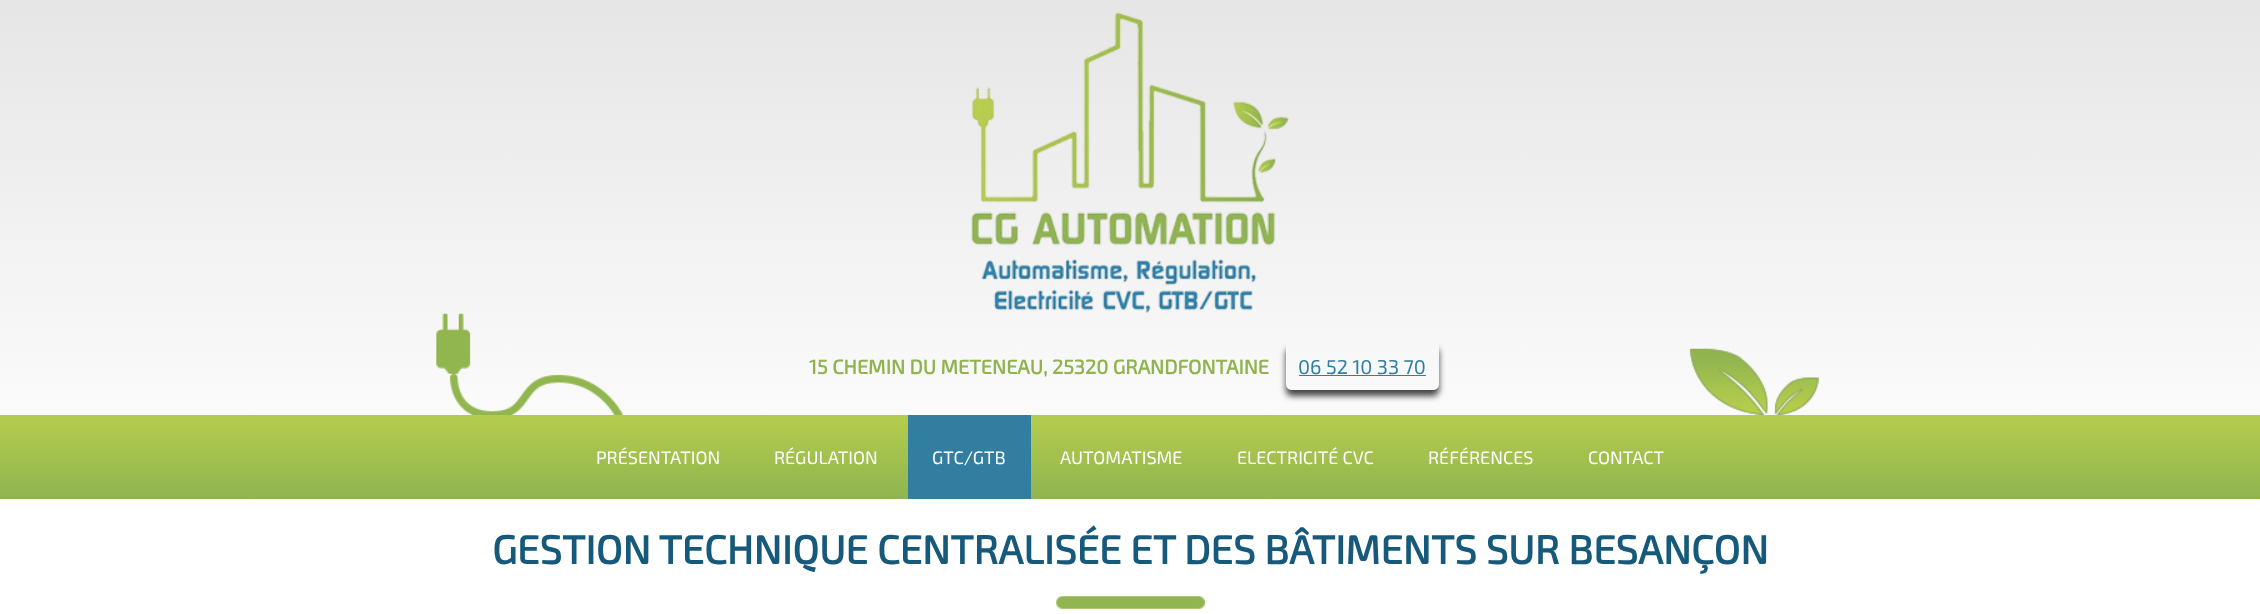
<svg xmlns="http://www.w3.org/2000/svg" width="2260" height="614">
<defs>
<linearGradient id="g1" gradientUnits="userSpaceOnUse" x1="1130" y1="0" x2="1130" y2="499"><stop offset="0" stop-color="#e6e6e6"/><stop offset="1" stop-color="#fff"/></linearGradient>
<clipPath id="clip1"><path d="M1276 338h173v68h-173zm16 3h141c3.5 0 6 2.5 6 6v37c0 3.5-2.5 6-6 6h-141c-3.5 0-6-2.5-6-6v-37c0-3.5 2.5-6 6-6z" clip-rule="evenodd"/></clipPath>
<linearGradient id="g2" gradientUnits="userSpaceOnUse" x1="1130" y1="415" x2="1130" y2="499"><stop offset="0" stop-color="#b5cd4d"/><stop offset="1" stop-color="#8fb44f"/></linearGradient>
</defs>
<rect width="100%" height="100%" fill="#fff"/>
<rect width="2260" height="415" fill="url(#g1)"/>
<image x="436" y="313" width="1383" height="102" href="media/1.png"/>
<image x="971" y="12" width="318" height="301" href="media/2.png"/>
<text x="809" y="374" style="font-family:'Exo 2';font-size:20px;font-weight:bold;fill:#8fb44f">15 CHEMIN DU METENEAU, 25320 GRANDFONTAINE</text>
<g clip-path="url(#clip1)">
<rect x="1286" y="348" width="153" height="48" rx="6" fill="#464545" filter="blur(3px)"/>
</g>
<text x="1298" y="374" style="font-family:'Exo 2';font-size:20px;fill:#317ea1">06 52 10 33 70</text>
<rect x="1299" y="375" width="127" height="1" fill="#317ea1"/>
<rect y="415" width="2260" height="84" fill="url(#g2)"/>
<text x="596" y="464" style="font-family:'Exo 2';font-size:18px;fill:#fff">PRÉSENTATION</text>
<text x="774" y="464" style="font-family:'Exo 2';font-size:18px;fill:#fff">RÉGULATION</text>
<rect x="908" y="415" width="123" height="84" fill="#317ea1"/>
<text x="932" y="464" style="font-family:'Exo 2';font-size:18px;fill:#fff">GTC/GTB</text>
<text x="1060" y="464" style="font-family:'Exo 2';font-size:18px;fill:#fff">AUTOMATISME</text>
<text x="1237" y="464" style="font-family:'Exo 2';font-size:18px;fill:#fff">ELECTRICITÉ CVC</text>
<text x="1428" y="464" style="font-family:'Exo 2';font-size:18px;fill:#fff">RÉFÉRENCES</text>
<text x="1588" y="464" style="font-family:'Exo 2';font-size:18px;fill:#fff">CONTACT</text>
<text x="492" y="564" style="font-family:'Exo 2';font-size:40px;font-weight:bold;fill:#17597a">GESTION TECHNIQUE CENTRALISÉE ET DES BÂTIMENTS SUR BESANÇON</text>
<image x="1056" y="596" width="149" height="13" href="media/3.png"/>
</svg>
